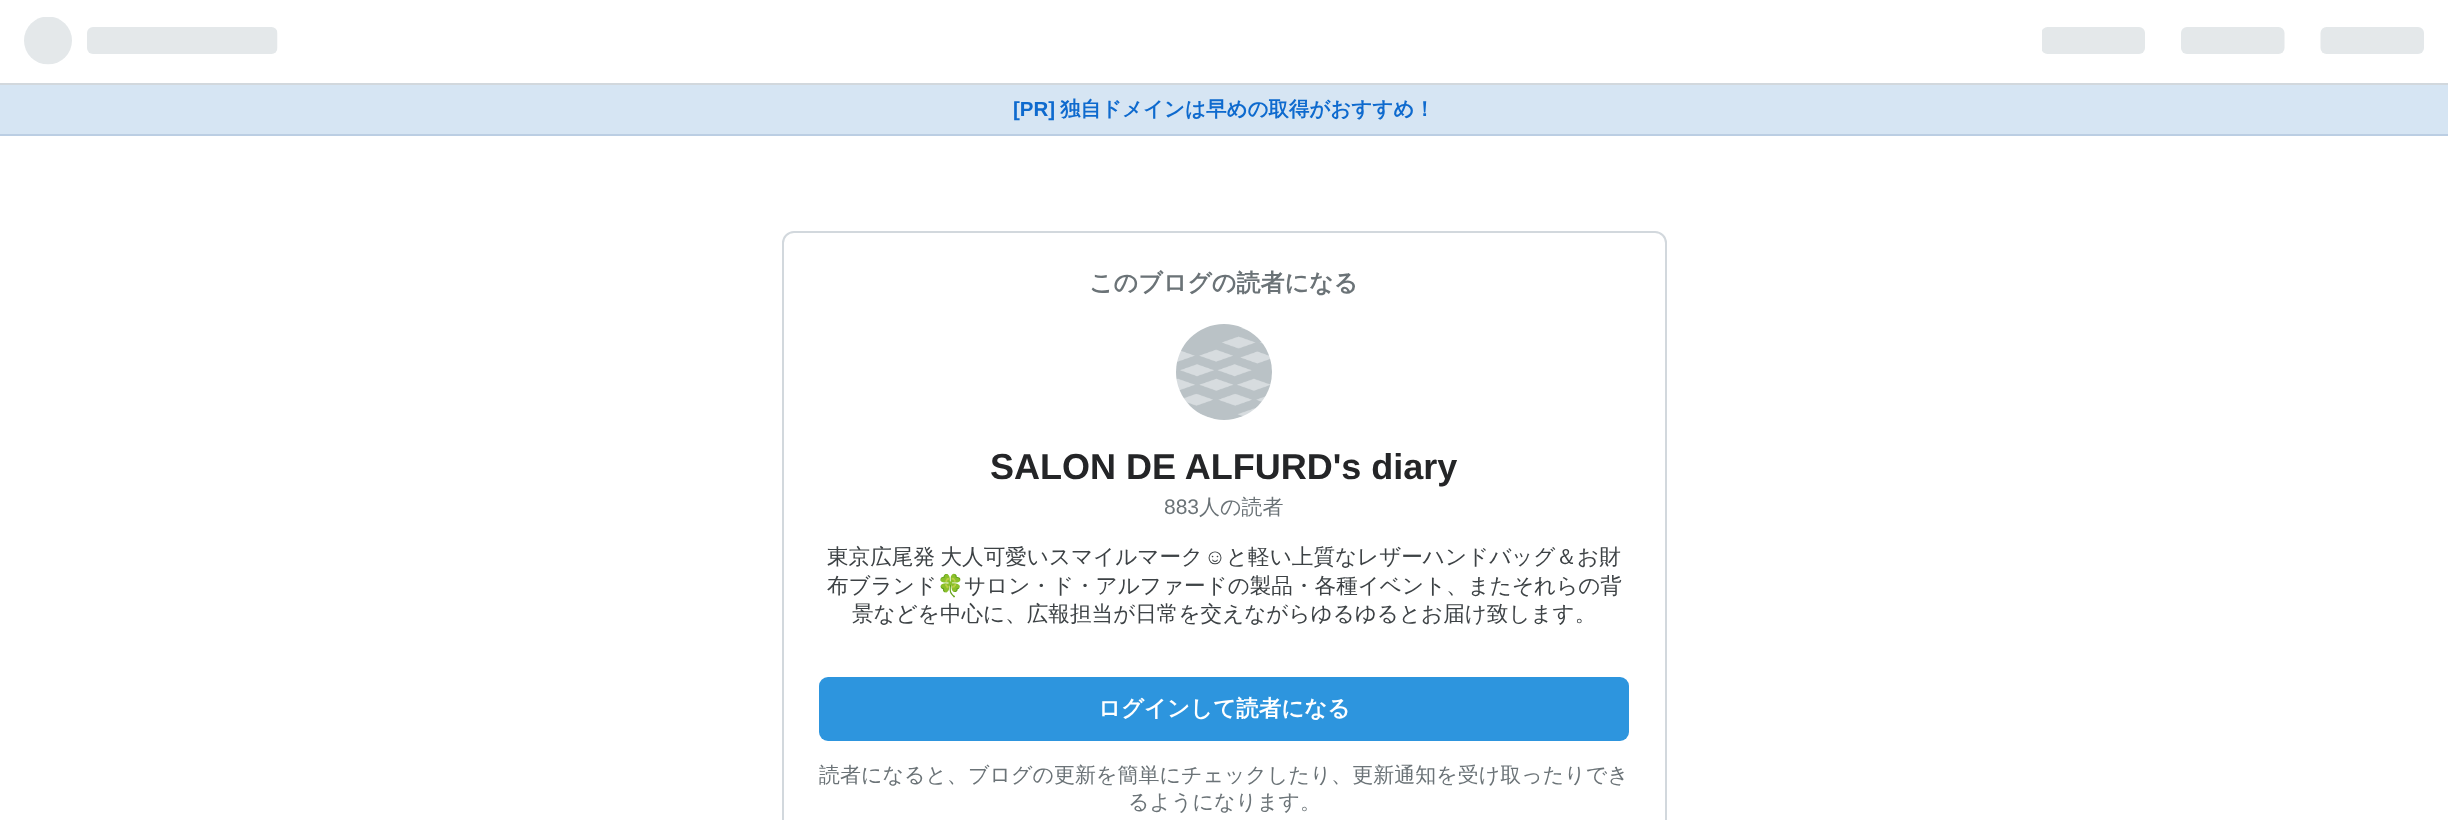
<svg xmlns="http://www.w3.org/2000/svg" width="2448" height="820">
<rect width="100%" height="100%" fill="#fff"/>
<rect y="83" width="2448" height="2" fill="#d2d8dd"/>
<image x="24" y="17" width="254" height="48" href="media/1.png"/>
<image x="2042" y="27" width="382" height="27" href="media/2.png"/>
<rect y="85" width="2448" height="49" fill="#d6e5f3"/>
<rect y="134" width="2448" height="2" fill="#bbcee3"/>
<text x="1013" y="116" style="font-family:Liberation Sans;font-size:20.5px;font-weight:bold;fill:#0e6ace">[PR]</text>
<text x="1060" y="116" style="font-family:WenQuanYi Zen Hei;font-size:20.5px;font-weight:bold;fill:#0e6ace">独自ドメインは早めの取得がおすすめ！</text>
<rect x="783" y="232" width="883" height="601" rx="11" fill="none" stroke="#d2d8dd" stroke-width="2"/>
<text x="1089" y="291" style="font-family:WenQuanYi Zen Hei;font-size:24px;font-weight:bold;fill:#6b7377">このブログの読者になる</text>
<image x="1176" y="324" width="96" height="96" href="media/3.png"/>
<text x="990" y="479" style="font-family:Liberation Sans;font-size:36px;font-weight:bold;fill:#242527">SALON DE ALFURD's diary</text>
<text x="1164" y="514" style="font-family:Liberation Sans;font-size:21px;fill:#6b7377">883</text>
<text x="1199" y="514" style="font-family:WenQuanYi Zen Hei;font-size:21px;font-weight:500;fill:#6b7377">人の読者</text>
<text x="827" y="564" word-spacing="-1" style="font-family:WenQuanYi Zen Hei;font-size:21.6px;font-weight:500;fill:#3d4245">東京広尾発 大人可愛いスマイルマーク</text>
<text x="1204" y="564" style="font-family:Liberation Sans;font-size:21.6px;fill:#3d4245">☺︎</text>
<text x="1226" y="564" style="font-family:WenQuanYi Zen Hei;font-size:21.6px;font-weight:500;fill:#3d4245">と軽い上質なレザーハンドバッグ＆お財</text>
<text x="827" y="593" style="font-family:WenQuanYi Zen Hei;font-size:21.6px;font-weight:500;fill:#3d4245">布ブランド</text>
<text x="937" y="593" style="font-family:Noto Color Emoji;font-size:21.6px;fill:#3d4245">🍀</text>
<text x="964" y="593" style="font-family:WenQuanYi Zen Hei;font-size:21.6px;font-weight:500;fill:#3d4245">サロン・ド・アルファードの製品・各種イベント、またそれらの背</text>
<text x="852" y="621" style="font-family:WenQuanYi Zen Hei;font-size:21.6px;font-weight:500;fill:#3d4245">景などを中心に、広報担当が日常を交えながらゆるゆるとお届け致します。</text>
<rect x="819" y="677" width="810" height="64" rx="9" fill="#2d95de"/>
<text x="1098" y="716" style="font-family:WenQuanYi Zen Hei;font-size:22.5px;font-weight:bold;fill:#fff">ログインして読者になる</text>
<text x="819" y="782" style="font-family:WenQuanYi Zen Hei;font-size:21px;font-weight:500;fill:#6b7377">読者になると、ブログの更新を簡単にチェックしたり、更新通知を受け取ったりでき</text>
<text x="1128" y="809" style="font-family:WenQuanYi Zen Hei;font-size:21px;font-weight:500;fill:#6b7377">るようになります。</text>
</svg>
